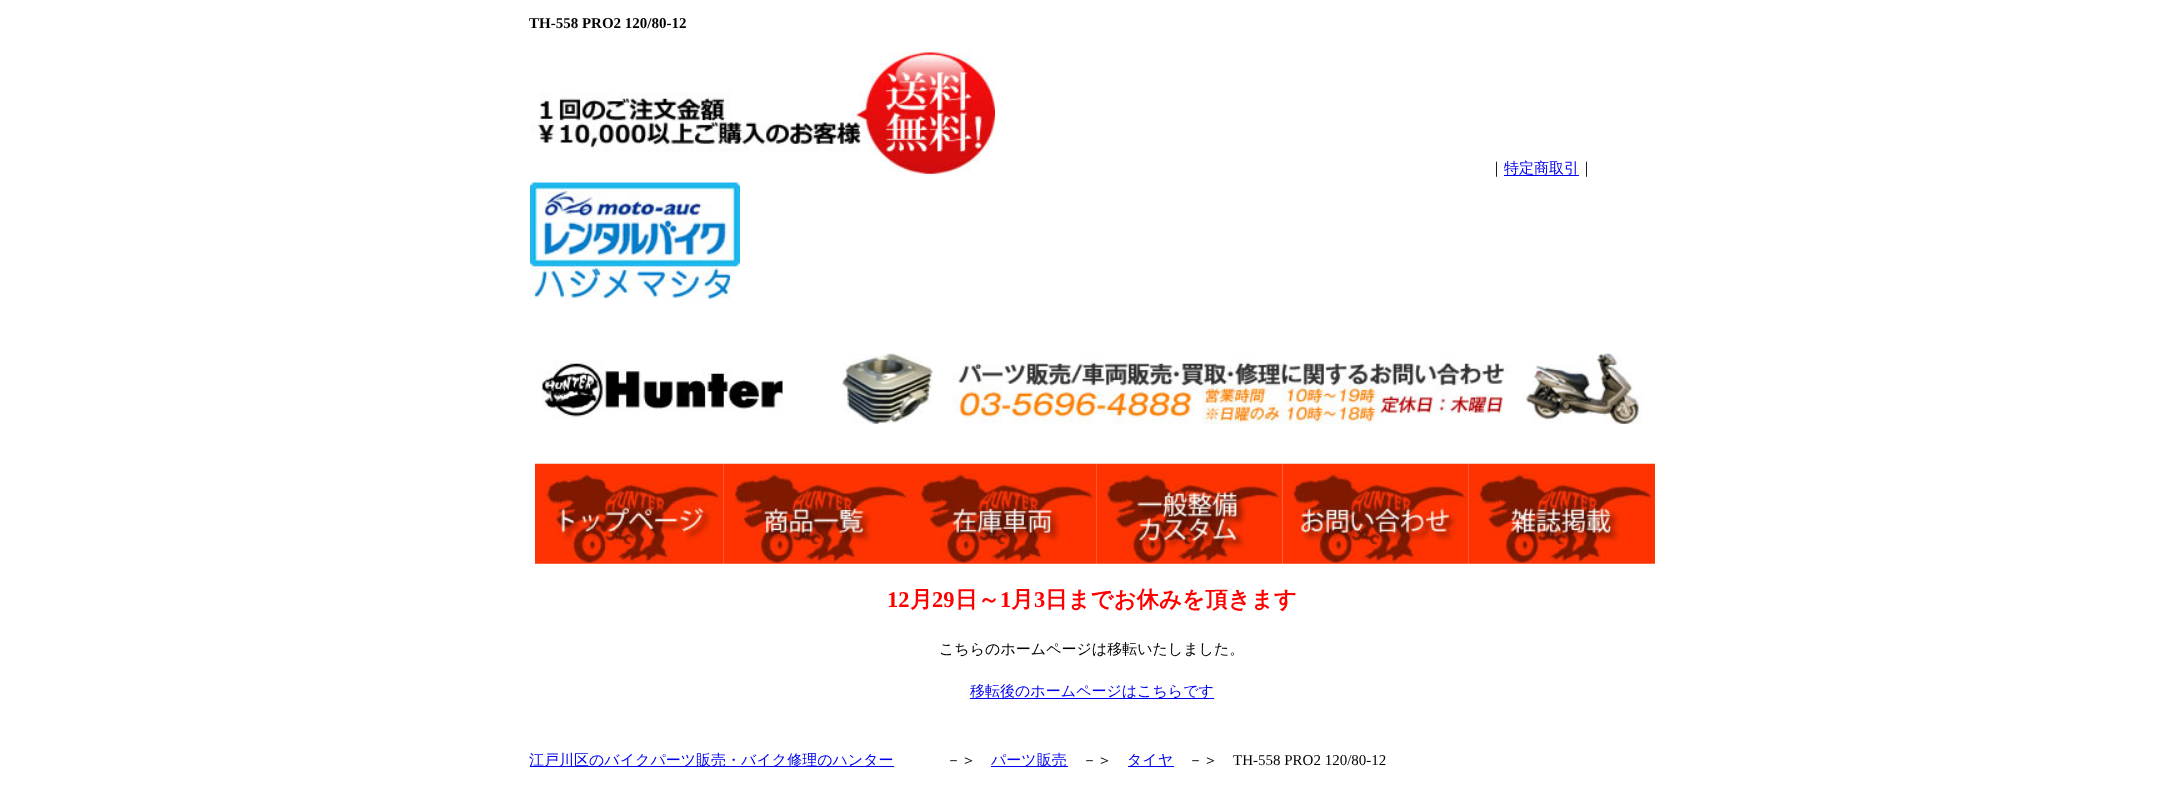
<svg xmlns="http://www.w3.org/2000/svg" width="2183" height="803">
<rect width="100%" height="100%" fill="#fff"/>
<text x="529" y="28" style="font-family:Liberation Serif;font-size:15px;font-weight:bold;fill:#000">TH-558 PRO2 120/80-12</text>
<image x="530" y="52" width="465" height="122" href="media/1.png"/>
<text x="1489" y="173" style="font-family:WenQuanYi Zen Hei;font-size:15px;font-weight:500;fill:#000">｜</text>
<rect x="1504" y="175" width="75" height="1" fill="#00e"/>
<text x="1504" y="173" style="font-family:WenQuanYi Zen Hei;font-size:15px;font-weight:500;fill:#00e">特定商取引</text>
<text x="1579" y="173" style="font-family:WenQuanYi Zen Hei;font-size:15px;font-weight:500;fill:#000">｜</text>
<image x="530" y="182" width="210" height="117" href="media/2.png"/>
<image x="542" y="360" width="241" height="59" href="media/3.png"/>
<image x="842" y="353" width="801" height="71" href="media/4.png"/>
<image x="535" y="463" width="189" height="101" href="media/5.png"/>
<image x="723" y="463" width="187" height="101" href="media/6.png"/>
<image x="910" y="463" width="187" height="101" href="media/7.png"/>
<image x="1096" y="463" width="187" height="101" href="media/8.png"/>
<image x="1282" y="463" width="187" height="101" href="media/9.png"/>
<image x="1468" y="463" width="187" height="101" href="media/10.png"/>
<text x="887" y="607" style="font-family:Liberation Serif;font-size:22.5px;font-weight:bold;fill:#f00">12</text>
<text x="910" y="607" style="font-family:WenQuanYi Zen Hei;font-size:22.5px;font-weight:bold;fill:#f00">月</text>
<text x="932" y="607" style="font-family:Liberation Serif;font-size:22.5px;font-weight:bold;fill:#f00">29</text>
<text x="955" y="607" style="font-family:WenQuanYi Zen Hei;font-size:22.5px;font-weight:bold;fill:#f00">日～</text>
<text x="1000" y="607" style="font-family:Liberation Serif;font-size:22.5px;font-weight:bold;fill:#f00">1</text>
<text x="1011" y="607" style="font-family:WenQuanYi Zen Hei;font-size:22.5px;font-weight:bold;fill:#f00">月</text>
<text x="1034" y="607" style="font-family:Liberation Serif;font-size:22.5px;font-weight:bold;fill:#f00">3</text>
<text x="1045" y="607" style="font-family:WenQuanYi Zen Hei;font-size:22.5px;font-weight:bold;fill:#f00">日までお休みを頂きます</text>
<text x="939" y="654" style="font-family:WenQuanYi Zen Hei;font-size:15px;font-weight:500;fill:#000">こちらのホームページは移転いたしました。</text>
<rect x="970" y="698" width="244" height="1" fill="#00e"/>
<text x="970" y="696" style="font-family:WenQuanYi Zen Hei;font-size:15px;font-weight:500;fill:#00e">移転後のホームページはこちらです</text>
<rect x="530" y="766" width="364" height="1" fill="#00e"/>
<text x="529" y="765" style="font-family:WenQuanYi Zen Hei;font-size:15px;font-weight:500;fill:#00e">江戸川区のバイクパーツ販売・バイク修理のハンター</text>
<text x="946" y="765" style="font-family:WenQuanYi Zen Hei;font-size:15px;font-weight:500;fill:#000">－＞</text>
<rect x="991" y="766" width="77" height="1" fill="#00e"/>
<text x="991" y="765" style="font-family:WenQuanYi Zen Hei;font-size:15px;font-weight:500;fill:#00e">パーツ販売</text>
<text x="1082" y="765" style="font-family:WenQuanYi Zen Hei;font-size:15px;font-weight:500;fill:#000">－＞</text>
<rect x="1128" y="766" width="46" height="1" fill="#00e"/>
<text x="1127" y="765" style="font-family:WenQuanYi Zen Hei;font-size:15px;font-weight:500;fill:#00e">タイヤ</text>
<text x="1188" y="765" style="font-family:WenQuanYi Zen Hei;font-size:15px;font-weight:500;fill:#000">－＞</text>
<text x="1233" y="765" style="font-family:Liberation Serif;font-size:15px;fill:#000">TH-558 PRO2 120/80-12</text>
</svg>
